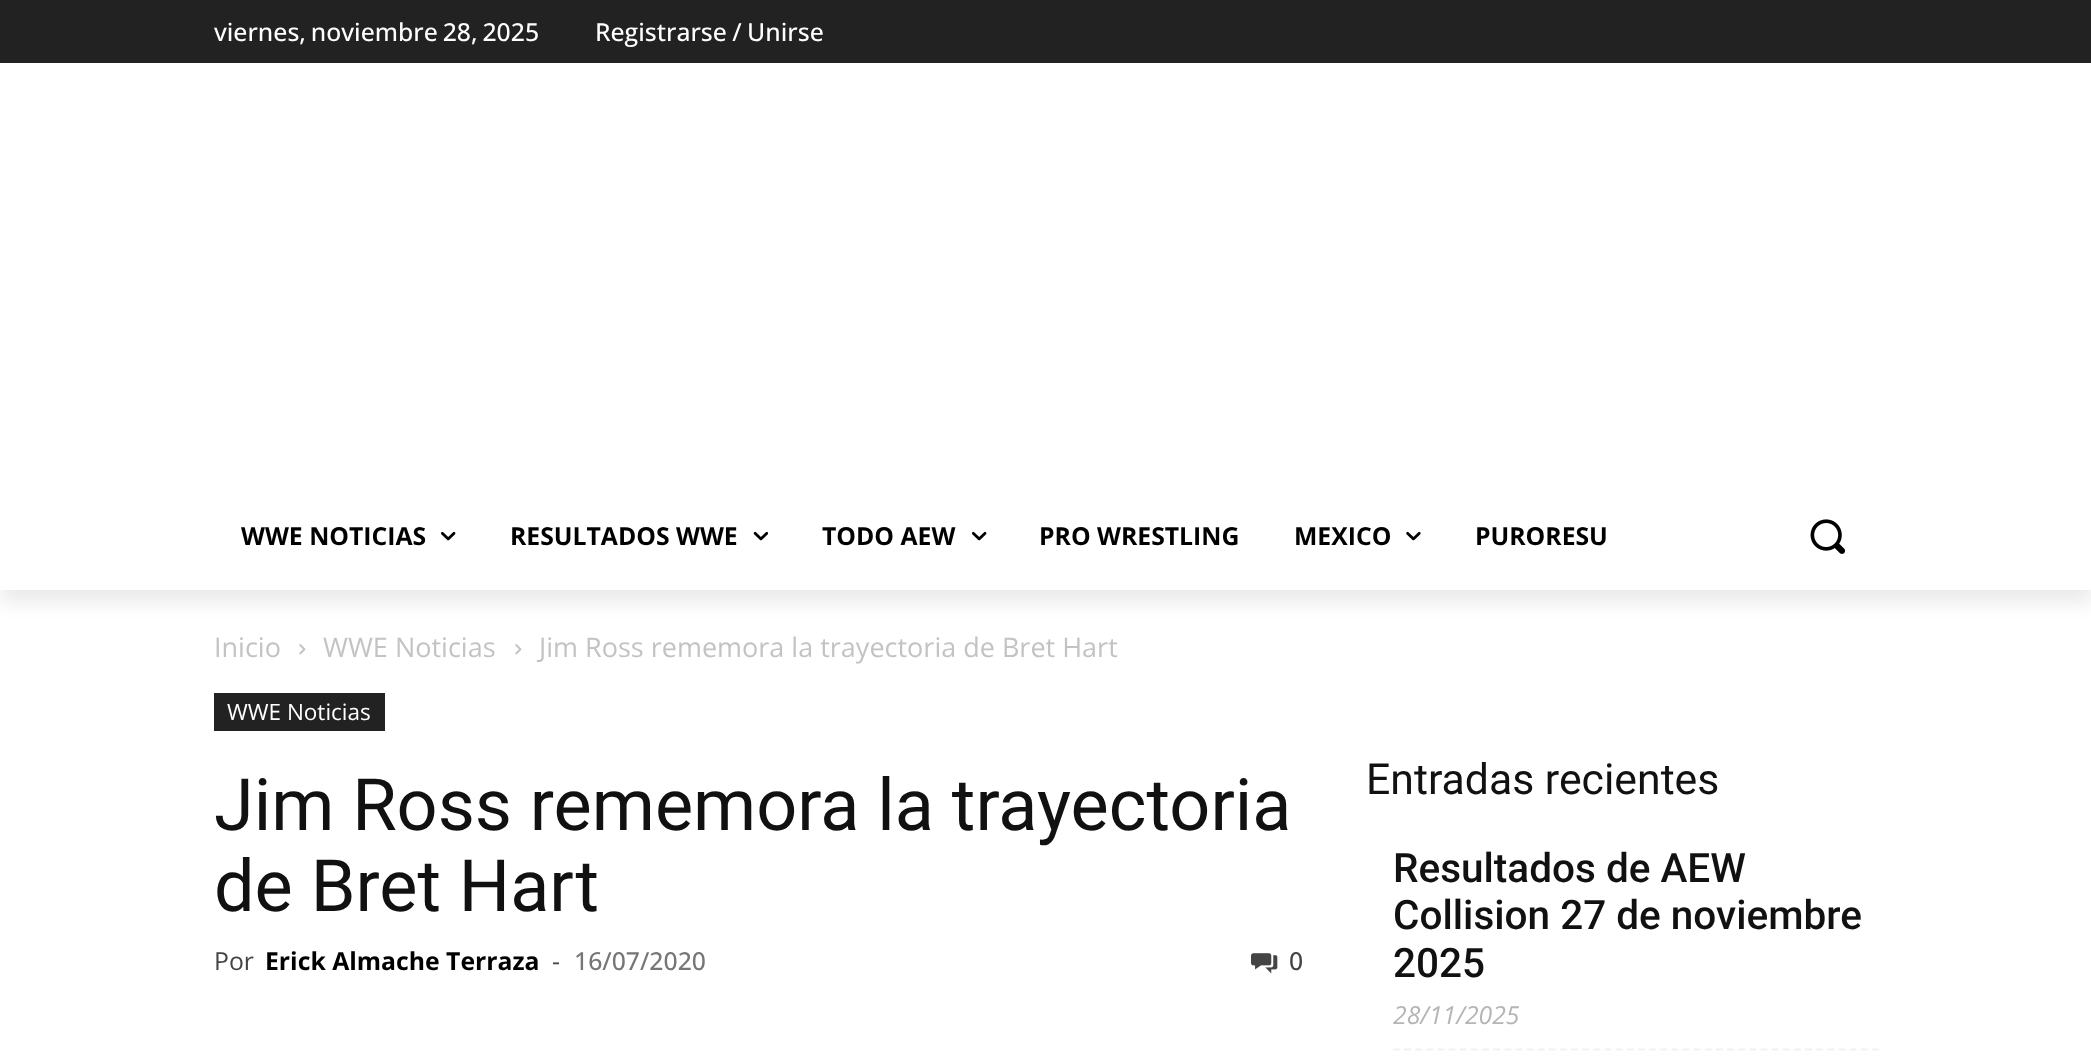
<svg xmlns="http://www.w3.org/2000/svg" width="2091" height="1058">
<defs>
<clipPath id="clip1"><path d="M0 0h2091v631h-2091zm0 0h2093v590h-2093z" clip-rule="evenodd"/></clipPath>
</defs>
<rect width="100%" height="100%" fill="#fff"/>
<rect width="2091" height="63" fill="#222"/>
<g clip-path="url(#clip1)">
<rect y="14" width="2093" height="589" fill="#00000014" filter="blur(9px)"/>
</g>
<text x="214" y="41" word-spacing="-1.5" style="font-family:Open Sans;font-size:24.75px;font-weight:500;fill:#fff">viernes, noviembre 28, 2025</text>
<text x="595" y="41" word-spacing="-1" style="font-family:Open Sans;font-size:24.75px;font-weight:500;fill:#fff">Registrarse / Unirse</text>
<text x="241" y="545" style="font-family:Open Sans;font-size:24.75px;font-weight:bold;fill:#000">WWE NOTICIAS</text>
<image x="441" y="531" width="15" height="10" href="media/1.png"/>
<text x="510" y="545" style="font-family:Open Sans;font-size:24.75px;font-weight:bold;fill:#000">RESULTADOS WWE</text>
<image x="753" y="531" width="16" height="10" href="media/2.png"/>
<text x="822" y="545" style="font-family:Open Sans;font-size:24.75px;font-weight:bold;fill:#000">TODO AEW</text>
<image x="972" y="531" width="15" height="10" href="media/1.png"/>
<text x="1039" y="545" style="font-family:Open Sans;font-size:24.75px;font-weight:bold;fill:#000">PRO WRESTLING</text>
<text x="1294" y="545" style="font-family:Open Sans;font-size:24.75px;font-weight:bold;fill:#000">MEXICO</text>
<image x="1406" y="531" width="15" height="10" href="media/3.png"/>
<text x="1475" y="545" style="font-family:Open Sans;font-size:24.75px;font-weight:bold;fill:#000">PURORESU</text>
<image x="1810" y="519" width="36" height="35" href="media/4.png"/>
<text x="214" y="657" style="font-family:Open Sans;font-size:27px;fill:#c3c3c3">Inicio</text>
<image x="299" y="644" width="7" height="11" href="media/5.png"/>
<text x="323" y="657" style="font-family:Open Sans;font-size:27px;fill:#c3c3c3">WWE Noticias</text>
<image x="515" y="644" width="7" height="11" href="media/5.png"/>
<text x="539" y="657" style="font-family:Open Sans;font-size:27px;fill:#c3c3c3">Jim Ross rememora la trayectoria de Bret Hart</text>
<rect x="214" y="693" width="171" height="38" fill="#222"/>
<text x="227" y="720" style="font-family:Open Sans;font-size:22.5px;fill:#fff">WWE Noticias</text>
<text x="214" y="830" style="font-family:Roboto;font-size:72px;fill:#111">Jim Ross rememora la trayectoria</text>
<text x="214" y="911" style="font-family:Roboto;font-size:72px;fill:#111">de Bret Hart</text>
<text x="214" y="970" style="font-family:Open Sans;font-size:24.75px;fill:#444">Por</text>
<text x="265" y="970" style="font-family:Open Sans;font-size:24.75px;font-weight:bold;fill:#000">Erick Almache Terraza</text>
<text x="552" y="970" style="font-family:Open Sans;font-size:24.75px;fill:#444">-</text>
<text x="574" y="970" style="font-family:Open Sans;font-size:24.75px;font-weight:500;fill:#767676">16/07/2020</text>
<image x="1251" y="953" width="27" height="21" href="media/6.png"/>
<text x="1289" y="970" style="font-family:Open Sans;font-size:24.75px;font-weight:500;fill:#444">0</text>
<text x="1366" y="794" style="font-family:Roboto;font-size:42.75px;fill:#111">Entradas recientes</text>
<path d="M1393 1049.5h486" fill="none" stroke="#f1f1f1" stroke-width="2.2" stroke-dasharray="6.75 4.39"/>
<text x="1393" y="882" style="font-family:Roboto;font-size:40.5px;font-weight:500;fill:#111">Resultados de AEW</text>
<text x="1393" y="929" style="font-family:Roboto;font-size:40.5px;font-weight:500;fill:#111">Collision 27 de noviembre</text>
<text x="1393" y="977" style="font-family:Roboto;font-size:40.5px;font-weight:500;fill:#111">2025</text>
<text x="1393" y="1024" style="font-family:Open Sans;font-size:24.75px;font-style:italic;fill:#b5b5b5">28/11/2025</text>
</svg>
